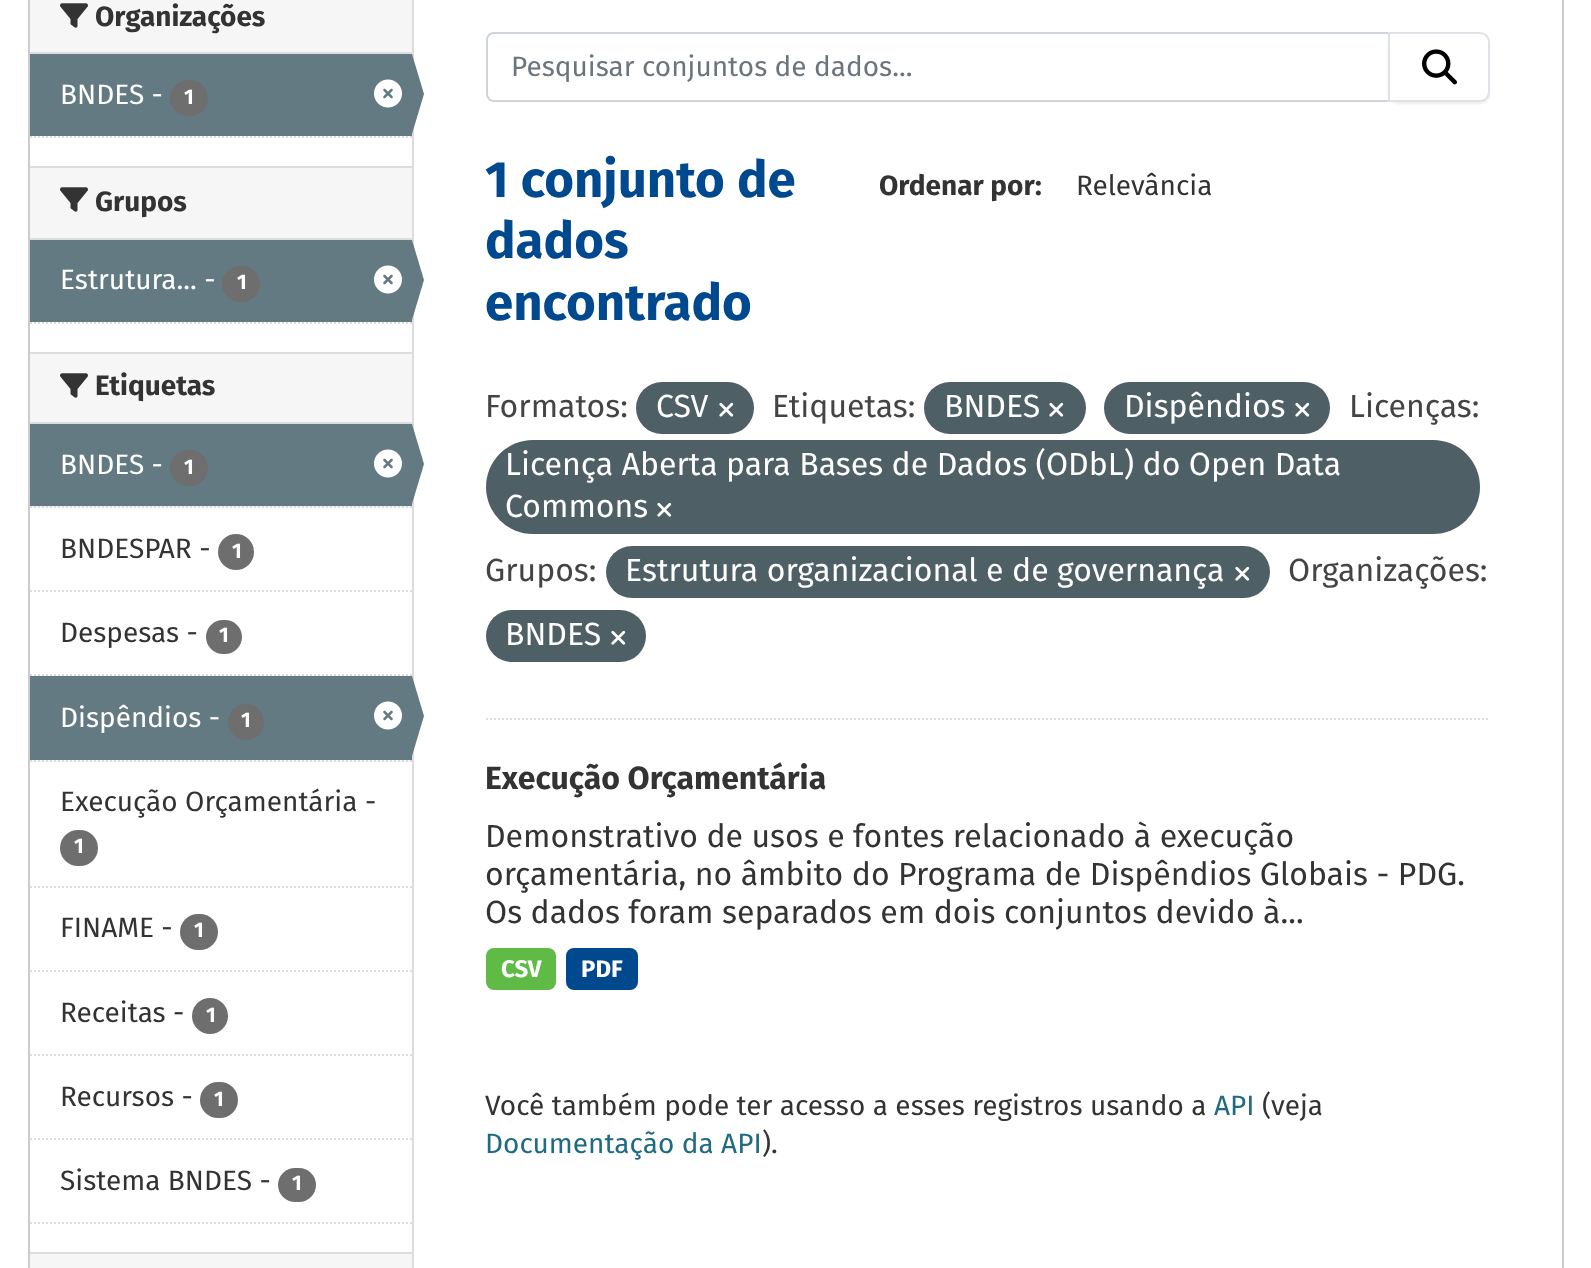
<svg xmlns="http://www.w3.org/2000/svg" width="1591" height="1268">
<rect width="100%" height="100%" fill="#fff"/>
<rect x="29" y="-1" width="1534" height="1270" fill="none" stroke="#ccc" stroke-width="2"/>
<rect x="30" width="382" height="52" fill="#f6f6f6"/>
<rect x="30" y="52" width="382" height="2" fill="#ddd"/>
<image x="60" y="3" width="28" height="25" href="media/1.png"/>
<text x="95" y="26" style="font-family:Fira Sans;font-size:28px;font-weight:bold;fill:#333">Organizações</text>
<rect x="30" y="54" width="382" height="82" fill="#647a82"/>
<text x="60" y="104" style="font-family:Fira Sans;font-size:28px;fill:#fff">BNDES -</text>
<rect x="170" y="80" width="38" height="36" rx="18" fill="#6e6e6e"/>
<text x="184" y="104" style="font-family:Fira Sans;font-size:21px;font-weight:bold;fill:#fff">1</text>
<image x="374" y="79" width="28" height="29" href="media/2.png"/>
<rect x="412" width="2" height="1268" fill="#ddd"/>
<path d="M412 134v-80l12 40z" fill="#647a82"/>
<path d="M30 137h382" fill="none" stroke="#ddd" stroke-width="2" stroke-dasharray="2 2"/>
<rect x="30" y="168" width="382" height="70" fill="#f6f6f6"/>
<rect x="30" y="166" width="382" height="2" fill="#ddd"/>
<rect x="30" y="238" width="382" height="2" fill="#ddd"/>
<image x="60" y="187" width="28" height="25" href="media/1.png"/>
<text x="95" y="211" style="font-family:Fira Sans;font-size:28px;font-weight:bold;fill:#333">Grupos</text>
<rect x="30" y="240" width="382" height="82" fill="#647a82"/>
<text x="60" y="289" style="font-family:Fira Sans;font-size:28px;fill:#fff">Estrutura... -</text>
<rect x="222" y="266" width="38" height="36" rx="18" fill="#6e6e6e"/>
<text x="237" y="289" style="font-family:Fira Sans;font-size:21px;font-weight:bold;fill:#fff">1</text>
<image x="374" y="265" width="28" height="29" href="media/2.png"/>
<path d="M412 320v-80l12 40z" fill="#647a82"/>
<path d="M30 323h382" fill="none" stroke="#ddd" stroke-width="2" stroke-dasharray="2 2"/>
<rect x="30" y="354" width="382" height="68" fill="#f6f6f6"/>
<rect x="30" y="352" width="382" height="2" fill="#ddd"/>
<rect x="30" y="422" width="382" height="2" fill="#ddd"/>
<image x="60" y="373" width="28" height="25" href="media/1.png"/>
<text x="95" y="395" style="font-family:Fira Sans;font-size:28px;font-weight:bold;fill:#333">Etiquetas</text>
<rect x="32" y="506" width="378" height="2" fill="#f6f6f6"/>
<path d="M30 507h382" fill="none" stroke="#ddd" stroke-width="2" stroke-dasharray="2 2"/>
<rect x="30" y="424" width="382" height="82" fill="#647a82"/>
<text x="60" y="474" style="font-family:Fira Sans;font-size:28px;fill:#fff">BNDES -</text>
<rect x="170" y="450" width="38" height="36" rx="18" fill="#6e6e6e"/>
<text x="184" y="474" style="font-family:Fira Sans;font-size:21px;font-weight:bold;fill:#fff">1</text>
<image x="374" y="449" width="28" height="29" href="media/2.png"/>
<path d="M412 504v-80l12 40z" fill="#647a82"/>
<path d="M30 591h382" fill="none" stroke="#ddd" stroke-width="2" stroke-dasharray="2 2"/>
<text x="60" y="558" style="font-family:Fira Sans;font-size:28px;fill:#333">BNDESPAR -</text>
<circle cx="236" cy="552" r="18" fill="#6e6e6e"/>
<text x="232" y="558" style="font-family:Fira Sans;font-size:21px;font-weight:bold;fill:#fff">1</text>
<path d="M30 675h382" fill="none" stroke="#ddd" stroke-width="2" stroke-dasharray="2 2"/>
<text x="60" y="642" style="font-family:Fira Sans;font-size:28px;fill:#333">Despesas -</text>
<rect x="206" y="620" width="36" height="34" rx="17" fill="#6e6e6e"/>
<text x="219" y="642" style="font-family:Fira Sans;font-size:21px;font-weight:bold;fill:#fff">1</text>
<rect x="32" y="760" width="378" height="2" fill="#f6f6f6"/>
<path d="M30 761h382" fill="none" stroke="#ddd" stroke-width="2" stroke-dasharray="2 2"/>
<rect x="30" y="676" width="382" height="84" fill="#647a82"/>
<text x="60" y="727" style="font-family:Fira Sans;font-size:28px;fill:#fff">Dispêndios -</text>
<circle cx="246" cy="722" r="18" fill="#6e6e6e"/>
<text x="241" y="727" style="font-family:Fira Sans;font-size:21px;font-weight:bold;fill:#fff">1</text>
<image x="374" y="701" width="28" height="29" href="media/2.png"/>
<path d="M412 756v-80l12 40z" fill="#647a82"/>
<path d="M30 887h382" fill="none" stroke="#ddd" stroke-width="2" stroke-dasharray="2 2"/>
<text x="60" y="811" style="font-family:Fira Sans;font-size:28px;fill:#333">Execução Orçamentária -</text>
<rect x="60" y="830" width="38" height="36" rx="18" fill="#6e6e6e"/>
<text x="74" y="853" style="font-family:Fira Sans;font-size:21px;font-weight:bold;fill:#fff">1</text>
<path d="M30 971h382" fill="none" stroke="#ddd" stroke-width="2" stroke-dasharray="2 2"/>
<text x="60" y="937" style="font-family:Fira Sans;font-size:28px;fill:#333">FINAME -</text>
<rect x="180" y="914" width="38" height="36" rx="18" fill="#6e6e6e"/>
<text x="194" y="937" style="font-family:Fira Sans;font-size:21px;font-weight:bold;fill:#fff">1</text>
<path d="M30 1055h382" fill="none" stroke="#ddd" stroke-width="2" stroke-dasharray="2 2"/>
<text x="60" y="1022" style="font-family:Fira Sans;font-size:28px;fill:#333">Receitas -</text>
<circle cx="210" cy="1016" r="18" fill="#6e6e6e"/>
<text x="206" y="1022" style="font-family:Fira Sans;font-size:21px;font-weight:bold;fill:#fff">1</text>
<path d="M30 1139h382" fill="none" stroke="#ddd" stroke-width="2" stroke-dasharray="2 2"/>
<text x="60" y="1106" style="font-family:Fira Sans;font-size:28px;fill:#333">Recursos -</text>
<rect x="200" y="1082" width="38" height="36" rx="18" fill="#6e6e6e"/>
<text x="214" y="1106" style="font-family:Fira Sans;font-size:21px;font-weight:bold;fill:#fff">1</text>
<text x="60" y="1190" style="font-family:Fira Sans;font-size:28px;fill:#333">Sistema BNDES -</text>
<rect x="278" y="1168" width="38" height="34" rx="17" fill="#6e6e6e"/>
<text x="292" y="1190" style="font-family:Fira Sans;font-size:21px;font-weight:bold;fill:#fff">1</text>
<path d="M30 1223h382" fill="none" stroke="#ddd" stroke-width="2" stroke-dasharray="2 2"/>
<rect x="30" y="1254" width="382" height="14" fill="#f6f6f6"/>
<rect x="30" y="1252" width="382" height="2" fill="#ddd"/>
<path d="M486 719h1004" fill="none" stroke="#ddd" stroke-width="2" stroke-dasharray="2 2"/>
<path d="M494 33h895v68h-895c-4 0-7-3-7-7v-54c0-4 3-7 7-7z" fill="none" stroke="#ced4da" stroke-width="2"/>
<text x="511" y="76" style="font-family:Fira Sans;font-size:28px;fill:#6c757d">Pesquisar conjuntos de dados...</text>
<rect x="1388" y="34" width="102" height="70" rx="10" fill="#00000012" filter="blur(1px)"/>
<path d="M1389 33h91c5 0 9 4 9 9v50c0 5-4 9-9 9h-91z" fill="#fff" stroke="#dee2e6" stroke-width="2"/>
<image x="1422" y="49" width="35" height="36" href="media/3.png"/>
<text x="485" y="197" style="font-family:Fira Sans;font-size:51px;font-weight:bold;fill:#01498f">1 conjunto de</text>
<text x="485" y="258" style="font-family:Fira Sans;font-size:51px;font-weight:bold;fill:#01498f">dados</text>
<text x="485" y="320" style="font-family:Fira Sans;font-size:51px;font-weight:bold;fill:#01498f">encontrado</text>
<text x="879" y="195" style="font-family:Fira Sans;font-size:28px;font-weight:bold;fill:#333">Ordenar por:</text>
<text x="1076" y="195" style="font-family:Fira Sans;font-size:28px;fill:#333">Relevância</text>
<text x="485" y="417" style="font-family:Fira Sans;font-size:32px;fill:#444">Formatos:</text>
<rect x="636" y="382" width="118" height="52" rx="26" fill="#4e5f65"/>
<text x="656" y="417" style="font-family:Fira Sans;font-size:32px;fill:#fff">CSV</text>
<image x="719" y="402" width="15" height="15" href="media/4.png"/>
<text x="772" y="417" style="font-family:Fira Sans;font-size:32px;fill:#444">Etiquetas:</text>
<rect x="924" y="382" width="162" height="52" rx="26" fill="#4e5f65"/>
<text x="944" y="417" style="font-family:Fira Sans;font-size:32px;fill:#fff">BNDES</text>
<image x="1049" y="402" width="15" height="15" href="media/4.png"/>
<rect x="1104" y="382" width="226" height="52" rx="26" fill="#4e5f65"/>
<text x="1124" y="417" style="font-family:Fira Sans;font-size:32px;fill:#fff">Dispêndios</text>
<image x="1295" y="402" width="15" height="15" href="media/4.png"/>
<text x="1349" y="417" style="font-family:Fira Sans;font-size:32px;fill:#444">Licenças:</text>
<rect x="486" y="440" width="994" height="94" rx="47" fill="#4e5f65"/>
<text x="505" y="475" style="font-family:Fira Sans;font-size:32px;fill:#fff">Licença Aberta para Bases de Dados (ODbL) do Open Data</text>
<text x="505" y="517" style="font-family:Fira Sans;font-size:32px;fill:#fff">Commons</text>
<image x="657" y="502" width="15" height="15" href="media/4.png"/>
<text x="485" y="581" style="font-family:Fira Sans;font-size:32px;fill:#444">Grupos:</text>
<rect x="606" y="546" width="664" height="52" rx="26" fill="#4e5f65"/>
<text x="625" y="581" style="font-family:Fira Sans;font-size:32px;fill:#fff">Estrutura organizacional e de governança</text>
<image x="1235" y="566" width="15" height="15" href="media/4.png"/>
<text x="1288" y="581" style="font-family:Fira Sans;font-size:32px;fill:#444">Organizações:</text>
<rect x="486" y="610" width="160" height="52" rx="26" fill="#4e5f65"/>
<text x="505" y="645" style="font-family:Fira Sans;font-size:32px;fill:#fff">BNDES</text>
<image x="611" y="630" width="15" height="15" href="media/4.png"/>
<text x="485" y="789" style="font-family:Fira Sans;font-size:32px;font-weight:bold;fill:#333">Execução Orçamentária</text>
<text x="485" y="847" style="font-family:Fira Sans;font-size:32px;fill:#333">Demonstrativo de usos e fontes relacionado à execução</text>
<text x="485" y="885" style="font-family:Fira Sans;font-size:32px;fill:#333">orçamentária, no âmbito do Programa de Dispêndios Globais - PDG.</text>
<text x="485" y="923" style="font-family:Fira Sans;font-size:32px;fill:#333">Os dados foram separados em dois conjuntos devido à...</text>
<rect x="486" y="948" width="70" height="42" rx="8" fill="#60bb46"/>
<text x="501" y="977" style="font-family:Fira Sans;font-size:24px;font-weight:bold;fill:#fff">CSV</text>
<rect x="566" y="948" width="72" height="42" rx="8" fill="#01498f"/>
<text x="581" y="977" style="font-family:Fira Sans;font-size:24px;font-weight:bold;fill:#fff">PDF</text>
<text x="485" y="1115" style="font-family:Fira Sans;font-size:28px;fill:#333">Você também pode ter acesso a esses registros usando a</text>
<text x="1214" y="1115" style="font-family:Fira Sans;font-size:28px;fill:#206b82">API</text>
<text x="1262" y="1115" style="font-family:Fira Sans;font-size:28px;fill:#333">(veja</text>
<text x="485" y="1153" style="font-family:Fira Sans;font-size:28px;fill:#206b82">Documentação da API</text>
<text x="762" y="1153" style="font-family:Fira Sans;font-size:28px;fill:#333">).</text>
</svg>
